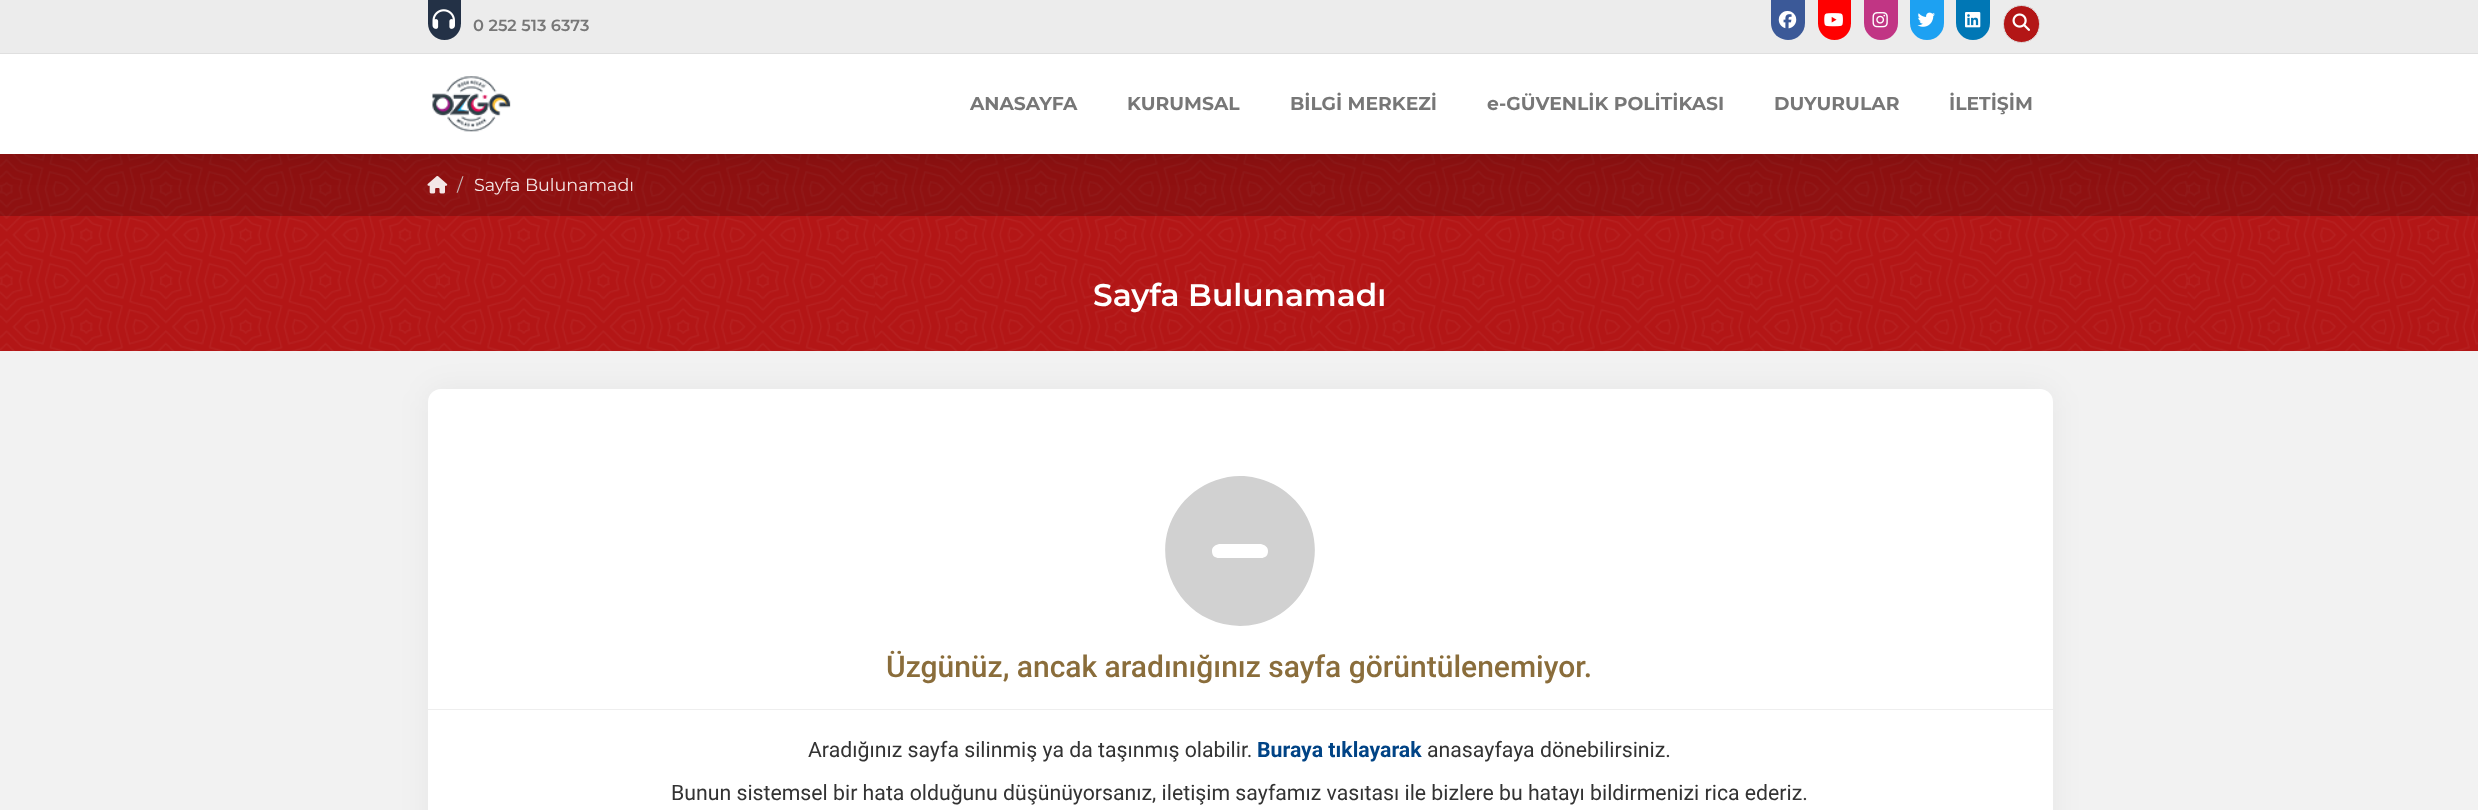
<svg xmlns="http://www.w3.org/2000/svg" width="2478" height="810">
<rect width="100%" height="100%" fill="#f2f2f2"/>
<rect y="154" width="2478" height="197" fill="#b31616"/>
<image x="0" y="154" width="2478" height="197" href="media/9.png"/>
<rect y="154" width="2478" height="62" fill="#00000033"/>
<image x="427" y="176" width="21" height="18" href="media/10.png"/>
<rect y="54" width="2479" height="100" fill="#00000026" filter="blur(15.5px)"/>
<rect width="2478" height="53" fill="#ececec"/>
<rect y="53" width="2478" height="1" fill="#dfdfdf"/>
<path d="M428 0h33v23.5c0 9-7.5 16.5-16.5 16.5c-9 0-16.5-7.5-16.5-16.5z" fill="#233146"/>
<image x="432" y="9" width="23" height="20" href="media/1.png"/>
<text x="473" y="31" style="font-family:Montserrat;font-size:16.25px;font-weight:600;fill:#777">0 252 513 6373</text>
<path d="M1771 0h34v23c0 9.5-7.5 17-17 17c-9.5 0-17-7.5-17-17z" fill="#3b5998"/>
<image x="1778" y="10" width="19" height="19" href="media/2.png"/>
<path d="M1818 0h33v23.5c0 9-7.5 16.5-16.5 16.5c-9 0-16.5-7.5-16.5-16.5z" fill="#f00"/>
<image x="1824" y="13" width="19" height="14" href="media/3.png"/>
<path d="M1864 0h34v23c0 9.5-7.5 17-17 17c-9.5 0-17-7.5-17-17z" fill="#c13584"/>
<image x="1872" y="12" width="16" height="16" href="media/4.png"/>
<path d="M1910 0h34v23c0 9.5-7.5 17-17 17c-9.5 0-17-7.5-17-17z" fill="#1da1f2"/>
<image x="1917" y="12" width="18" height="15" href="media/5.png"/>
<path d="M1956 0h34v23c0 9.5-7.5 17-17 17c-9.5 0-17-7.5-17-17z" fill="#0077b5"/>
<image x="1965" y="12" width="16" height="16" href="media/6.png"/>
<rect x="2003.5" y="5.5" width="36" height="37" rx="18" fill="#b31616" stroke="#dedede"/>
<image x="2012" y="13" width="18" height="18" href="media/7.png"/>
<rect y="54" width="2478" height="100" fill="#fff"/>
<image x="432" y="76" width="79" height="56" href="media/8.png"/>
<text x="970" y="110" style="font-family:Montserrat;font-size:18.75px;font-weight:bold;fill:#777">ANASAYFA</text>
<text x="1127" y="110" style="font-family:Montserrat;font-size:18.75px;font-weight:bold;fill:#777">KURUMSAL</text>
<text x="1290" y="110" style="font-family:Montserrat;font-size:18.75px;font-weight:bold;fill:#777">BİLGİ MERKEZİ</text>
<text x="1487" y="110" style="font-family:Montserrat;font-size:18.75px;font-weight:bold;fill:#777">e-GÜVENLİK POLİTİKASI</text>
<text x="1774" y="110" style="font-family:Montserrat;font-size:18.75px;font-weight:bold;fill:#777">DUYURULAR</text>
<text x="1949" y="110" style="font-family:Montserrat;font-size:18.75px;font-weight:bold;fill:#777">İLETİŞİM</text>
<text x="457" y="191" style="font-family:Montserrat;font-size:17.5px;fill:#c6b9b9">/</text>
<text x="474" y="191" style="font-family:Montserrat;font-size:17.5px;fill:#f4e7e7">Sayfa Bulunamadı</text>
<text x="1093" y="306" style="font-family:Montserrat;font-size:31.25px;font-weight:600;fill:#fff">Sayfa Bulunamadı</text>
<rect x="428" y="389" width="1625" height="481" rx="13" fill="#0000000d" filter="blur(15.5px)"/>
<rect x="428" y="389" width="1625" height="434" rx="13" fill="#fff"/>
<path d="M1240 626c71-1 102-90 46-134c-13-10-30-16-46-16c-16 0-33 6-46 16c-56 44-25 133 46 134zm-21-82h42c4 1 7 3 7 7c0 5-3 7-7 7h-42c-4 0-7-2-7-7c0-4 3-6 7-7z" fill="#d1d1d1"/>
<text x="886" y="677" style="font-family:Roboto;font-size:30px;font-weight:500;fill:#8a6d3b">Üzgünüz, ancak aradınığınız sayfa görüntülenemiyor.</text>
<rect x="428" y="709" width="1625" height="1" fill="#eee"/>
<text x="808" y="757" style="font-family:Roboto;font-size:21.25px;fill:#333">Aradığınız sayfa silinmiş ya da taşınmış olabilir.</text>
<text x="1257" y="757" style="font-family:Roboto;font-size:21.25px;font-weight:bold;fill:#004385">Buraya tıklayarak</text>
<text x="1427" y="757" style="font-family:Roboto;font-size:21.25px;fill:#333">anasayfaya dönebilirsiniz.</text>
<text x="671" y="800" style="font-family:Roboto;font-size:21.25px;fill:#333">Bunun sistemsel bir hata olduğunu düşünüyorsanız, iletişim sayfamız vasıtası ile bizlere bu hatayı bildirmenizi rica ederiz.</text>
</svg>
